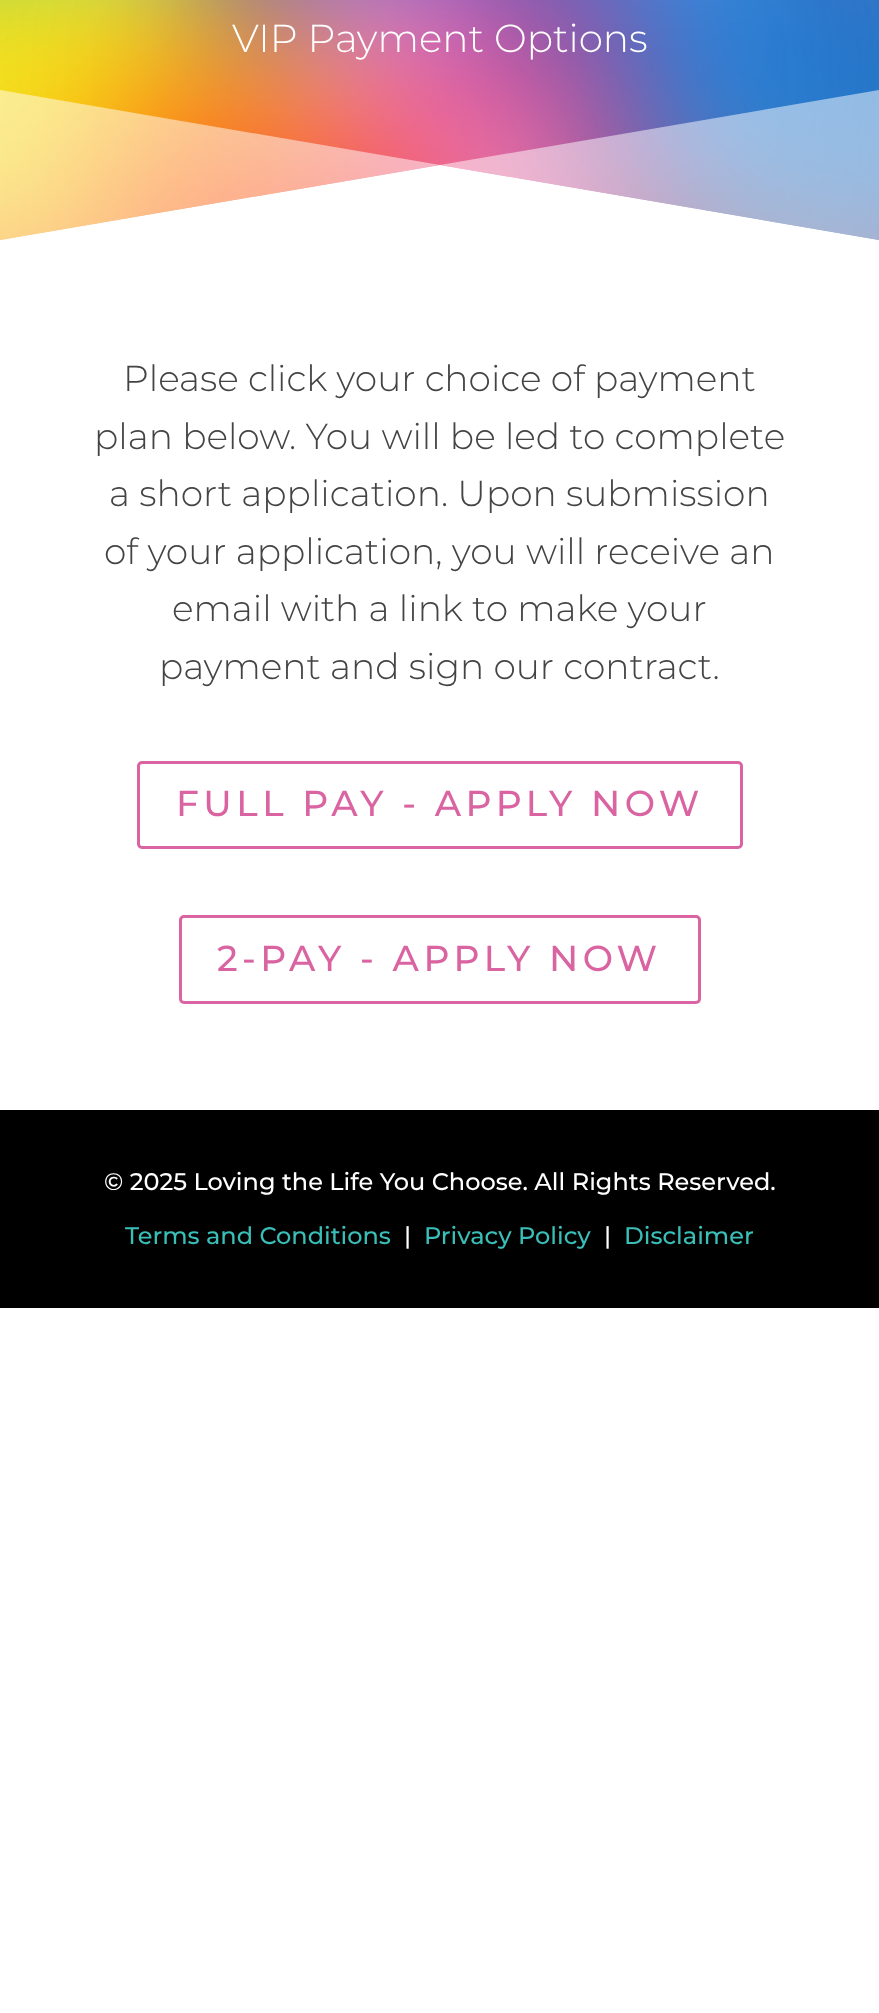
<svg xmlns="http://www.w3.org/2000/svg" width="879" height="2013">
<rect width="100%" height="100%" fill="#fff"/>
<image x="0" y="0" width="879" height="240" href="media/1.png"/>
<text x="232" y="52" style="font-family:Montserrat;font-size:39px;font-weight:300;fill:#fff">VIP Payment Options</text>
<path d="M0 240l440-75l439 75v-150l-439 75l-440-75z" fill="#ffffff80"/>
<path d="M0 240h879l-439-75z" fill="#fff"/>
<text x="123" y="391" style="font-family:Montserrat;font-size:36px;font-weight:300;fill:#444">Please click your choice of payment</text>
<text x="94" y="449" style="font-family:Montserrat;font-size:36px;font-weight:300;fill:#444">plan below. You will be led to complete</text>
<text x="109" y="506" style="font-family:Montserrat;font-size:36px;font-weight:300;fill:#444">a short application. Upon submission</text>
<text x="104" y="564" style="font-family:Montserrat;font-size:36px;font-weight:300;fill:#444">of your application, you will receive an</text>
<text x="172" y="621" style="font-family:Montserrat;font-size:36px;font-weight:300;fill:#444">email with a link to make your</text>
<text x="159" y="679" style="font-family:Montserrat;font-size:36px;font-weight:300;fill:#444">payment and sign our contract.</text>
<rect x="138.5" y="762.5" width="603" height="85" rx="3.5" fill="none" stroke="#da64a1" stroke-width="3"/>
<text x="176" y="816" style="font-family:Montserrat;font-size:36px;font-weight:500;letter-spacing:4.5px;fill:#da64a1">FULL PAY - APPLY NOW</text>
<rect x="180.5" y="916.5" width="519" height="86" rx="3.5" fill="none" stroke="#da64a1" stroke-width="3"/>
<text x="217" y="971" style="font-family:Montserrat;font-size:36px;font-weight:500;letter-spacing:4.5px;fill:#da64a1">2-PAY - APPLY NOW</text>
<rect y="1110" width="879" height="198" fill="#000"/>
<text x="104" y="1190" style="font-family:Montserrat;font-size:24px;font-weight:500;fill:#fff">© 2025 Loving the Life You Choose. All Rights Reserved.</text>
<text x="125" y="1244" style="font-family:Montserrat;font-size:24px;font-weight:500;fill:#3abeb8">Terms and Conditions</text>
<text x="404" y="1244" style="font-family:Montserrat;font-size:24px;font-weight:500;fill:#fff">|</text>
<text x="424" y="1244" style="font-family:Montserrat;font-size:24px;font-weight:500;fill:#3abeb8">Privacy Policy</text>
<text x="604" y="1244" style="font-family:Montserrat;font-size:24px;font-weight:500;fill:#fff">|</text>
<text x="624" y="1244" style="font-family:Montserrat;font-size:24px;font-weight:500;fill:#3abeb8">Disclaimer</text>
</svg>
